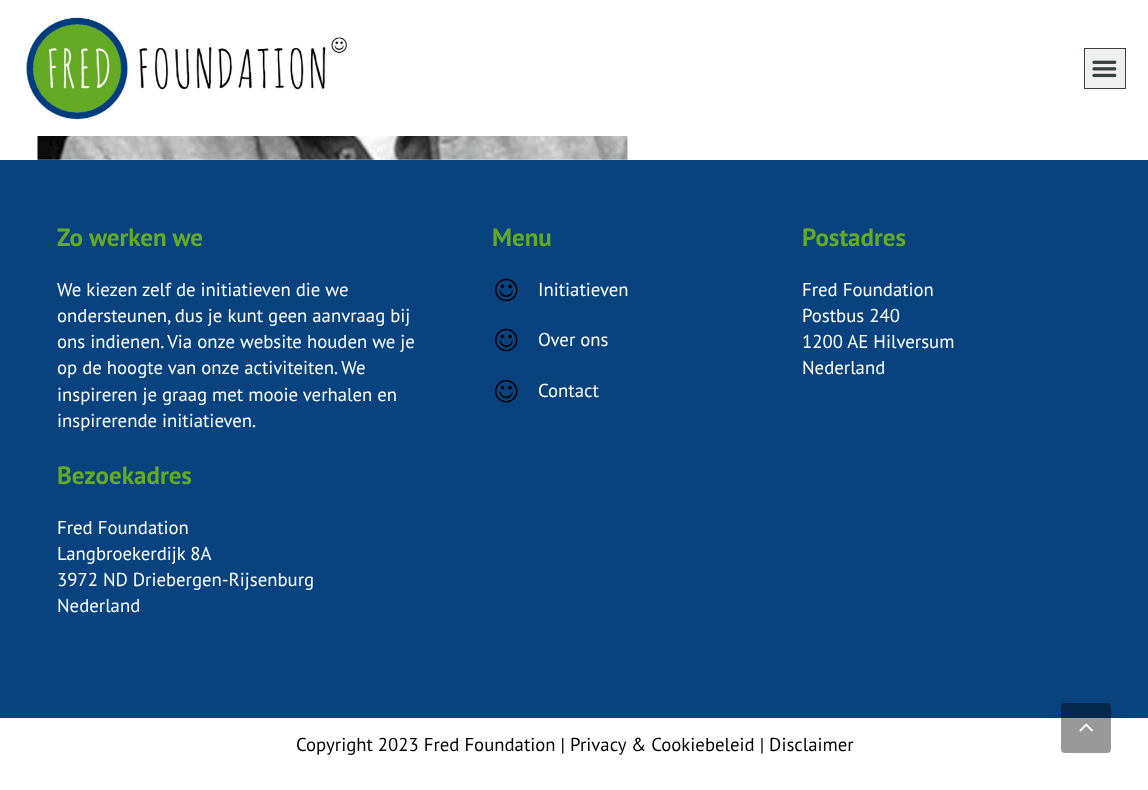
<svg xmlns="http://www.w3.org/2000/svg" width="1148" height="790">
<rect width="100%" height="100%" fill="#fff"/>
<image x="25" y="17" width="323" height="103" href="media/1.png"/>
<rect x="1084.5" y="48.5" width="41" height="40" fill="#f0f0f0" stroke="#393e3f"/>
<image x="1092" y="60" width="25" height="18" href="media/2.png"/>
<image x="37" y="136" width="591" height="24" href="media/3.png"/>
<rect y="160" width="1148" height="558" fill="#09437f"/>
<text x="57" y="246" style="font-family:PT Sans;font-size:25px;font-weight:bold;fill:#64ab25">Zo werken we</text>
<text x="57" y="296" style="font-family:PT Sans;font-size:18.75px;fill:#fff">We kiezen zelf de initiatieven die we</text>
<text x="57" y="322" style="font-family:PT Sans;font-size:18.75px;fill:#fff">ondersteunen, dus je kunt geen aanvraag bij</text>
<text x="57" y="348" style="font-family:PT Sans;font-size:18.75px;fill:#fff">ons indienen. Via onze website houden we je</text>
<text x="57" y="374" style="font-family:PT Sans;font-size:18.75px;fill:#fff">op de hoogte van onze activiteiten. We</text>
<text x="57" y="401" style="font-family:PT Sans;font-size:18.75px;fill:#fff">inspireren je graag met mooie verhalen en</text>
<text x="57" y="427" style="font-family:PT Sans;font-size:18.75px;fill:#fff">inspirerende initiatieven.</text>
<text x="492" y="246" style="font-family:PT Sans;font-size:25px;font-weight:bold;fill:#64ab25">Menu</text>
<image x="495" y="278" width="23" height="24" href="media/4.png"/>
<text x="538" y="296" style="font-family:PT Sans;font-size:18.75px;fill:#fff">Initiatieven</text>
<image x="495" y="328" width="23" height="24" href="media/4.png"/>
<text x="538" y="346" style="font-family:PT Sans;font-size:18.75px;fill:#fff">Over ons</text>
<image x="495" y="380" width="23" height="23" href="media/5.png"/>
<text x="538" y="397" style="font-family:PT Sans;font-size:18.75px;fill:#fff">Contact</text>
<text x="802" y="246" style="font-family:PT Sans;font-size:25px;font-weight:bold;fill:#64ab25">Postadres</text>
<text x="802" y="296" style="font-family:PT Sans;font-size:18.75px;fill:#fff">Fred Foundation</text>
<text x="802" y="322" style="font-family:PT Sans;font-size:18.75px;fill:#fff">Postbus 240</text>
<text x="802" y="348" style="font-family:PT Sans;font-size:18.75px;fill:#fff">1200 AE Hilversum</text>
<text x="802" y="374" style="font-family:PT Sans;font-size:18.75px;fill:#fff">Nederland</text>
<text x="57" y="484" style="font-family:PT Sans;font-size:25px;font-weight:bold;fill:#64ab25">Bezoekadres</text>
<text x="57" y="534" style="font-family:PT Sans;font-size:18.75px;fill:#fff">Fred Foundation</text>
<text x="57" y="560" style="font-family:PT Sans;font-size:18.75px;fill:#fff">Langbroekerdijk 8A</text>
<text x="57" y="586" style="font-family:PT Sans;font-size:18.75px;fill:#fff">3972 ND Driebergen-Rijsenburg</text>
<text x="57" y="612" style="font-family:PT Sans;font-size:18.75px;fill:#fff">Nederland</text>
<text x="296" y="751" style="font-family:PT Sans;font-size:18.75px;fill:#000">Copyright 2023 Fred Foundation | Privacy &amp; Cookiebeleid | Disclaimer</text>
<rect x="1061" y="703" width="50" height="50" rx="4" fill="#00000066"/>
<image x="1079" y="723" width="14" height="9" href="media/6.png"/>
</svg>
